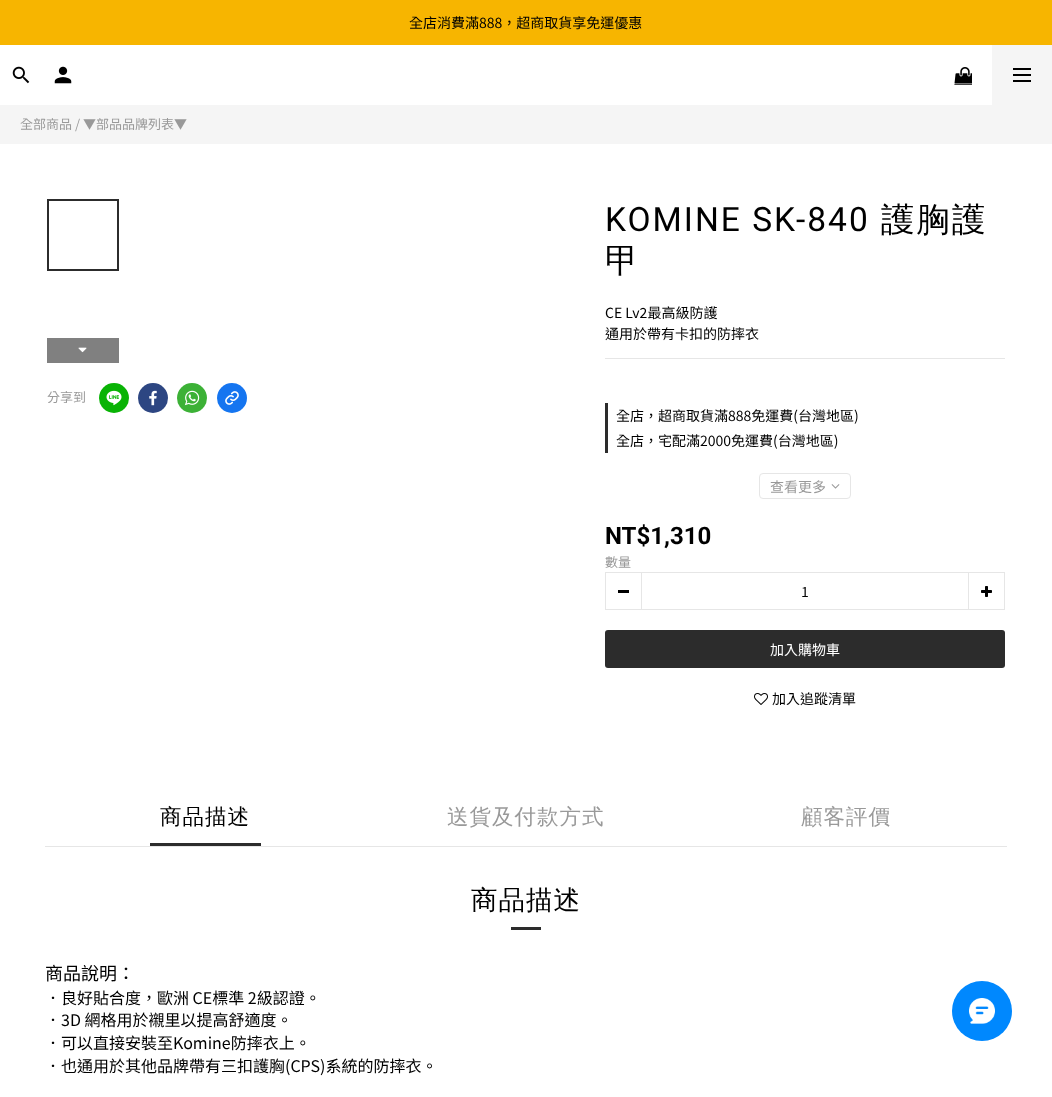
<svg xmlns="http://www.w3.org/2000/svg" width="1052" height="1097">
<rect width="100%" height="100%" fill="#fff"/>
<rect width="1052" height="45" fill="#f7b500"/>
<text x="409" y="28" style="font-family:Noto Sans TC;font-size:14px;fill:#000">全店消費滿888，超商取貨享免運優惠</text>
<image x="12" y="66" width="18" height="18" href="media/1.png"/>
<image x="54" y="66" width="18" height="18" href="media/2.png"/>
<image x="954" y="67" width="18" height="18" href="media/3.png"/>
<rect x="992" y="45" width="60" height="60" fill="#f5f5f5"/>
<rect x="1013" y="74" width="18" height="2" fill="#000"/>
<rect x="1013" y="68" width="18" height="2" fill="#000"/>
<rect x="1013" y="80" width="18" height="2" fill="#000"/>
<rect y="105" width="1052" height="39" fill="#f5f5f5"/>
<text x="20" y="129" style="font-family:Noto Sans TC;font-size:13px;fill:#999">全部商品 / ▼部品品牌列表▼</text>
<rect x="48" y="200" width="70" height="70" fill="none" stroke="#2c2c2c" stroke-width="2"/>
<rect x="47" y="338" width="72" height="25" fill="#808080"/>
<image x="78" y="347" width="9" height="6" href="media/4.png"/>
<text x="47" y="402" style="font-family:Noto Sans TC;font-size:13px;fill:#999">分享到</text>
<circle cx="114" cy="398" r="15" fill="#09b305"/>
<image x="106" y="390" width="16" height="16" href="media/5.png"/>
<circle cx="153" cy="398" r="15" fill="#2d4682"/>
<image x="149" y="390" width="8" height="16" href="media/6.png"/>
<circle cx="192" cy="398" r="15" fill="#3cb136"/>
<image x="184" y="390" width="16" height="16" href="media/7.png"/>
<circle cx="232" cy="398" r="15" fill="#1575f0"/>
<image x="225" y="391" width="14" height="14" href="media/8.png"/>
<text x="605" y="231" style="font-family:Roboto;font-size:33.5px;letter-spacing:2px;fill:#000">KOMINE SK-840</text>
<text x="881" y="231" style="font-family:WenQuanYi Zen Hei;font-size:33.5px;font-weight:500;letter-spacing:2px;fill:#000">護胸護</text>
<text x="605" y="272" style="font-family:WenQuanYi Zen Hei;font-size:33.5px;font-weight:500;letter-spacing:2px;fill:#000">甲</text>
<text x="605" y="318" style="font-family:Noto Sans TC;font-size:14px;fill:#000">CE Lv2最高級防護</text>
<text x="605" y="339" style="font-family:Noto Sans TC;font-size:14px;fill:#000">通用於帶有卡扣的防摔衣</text>
<rect x="605" y="358" width="400" height="1" fill="#e6e6e6"/>
<rect x="605" y="403" width="3" height="50" fill="#2c2c2c"/>
<text x="616" y="421" style="font-family:Noto Sans TC;font-size:14px;fill:#000">全店，超商取貨滿888免運費(台灣地區)</text>
<text x="616" y="446" style="font-family:Noto Sans TC;font-size:14px;fill:#000">全店，宅配滿2000免運費(台灣地區)</text>
<rect x="759.5" y="473.5" width="91" height="25" rx="3.5" fill="none" stroke="#e6e6e6"/>
<text x="770" y="492" style="font-family:Noto Sans TC;font-size:14px;fill:#999">查看更多</text>
<image x="831" y="484" width="9" height="5" href="media/9.png"/>
<text x="605" y="544" style="font-family:Roboto;font-size:24px;font-weight:bold;fill:#000">NT$1,310</text>
<text x="605" y="567" style="font-family:Noto Sans TC;font-size:13px;fill:#999">數量</text>
<rect x="641" y="572" width="328" height="1" fill="#e6e6e6"/>
<rect x="641" y="609" width="328" height="1" fill="#e6e6e6"/>
<rect x="605.5" y="572.5" width="36" height="37" fill="none" stroke="#e6e6e6"/>
<rect x="618" y="590" width="11" height="3" fill="#000"/>
<text x="801" y="597" style="font-family:Noto Sans TC;font-size:14px;fill:#000">1</text>
<rect x="968.5" y="572.5" width="36" height="37" fill="none" stroke="#e6e6e6"/>
<image x="981" y="586" width="11" height="11" href="media/10.png"/>
<rect x="605" y="630" width="400" height="38" rx="3" fill="#2c2c2c"/>
<text x="770" y="655" style="font-family:Noto Sans TC;font-size:14px;fill:#fff">加入購物車</text>
<image x="754" y="693" width="14" height="12" href="media/11.png"/>
<text x="772" y="704" style="font-family:Noto Sans TC;font-size:14px;fill:#000">加入追蹤清單</text>
<rect x="45" y="846" width="962" height="1" fill="#e6e6e6"/>
<text x="160" y="824" style="font-family:WenQuanYi Zen Hei;font-size:21.5px;font-weight:500;letter-spacing:1px;fill:#000">商品描述</text>
<rect x="150" y="843" width="111" height="3" fill="#2c2c2c"/>
<text x="447" y="824" style="font-family:WenQuanYi Zen Hei;font-size:21.5px;font-weight:500;letter-spacing:1px;fill:#999">送貨及付款方式</text>
<text x="801" y="824" style="font-family:WenQuanYi Zen Hei;font-size:21.5px;font-weight:500;letter-spacing:1px;fill:#999">顧客評價</text>
<text x="471" y="909" style="font-family:WenQuanYi Zen Hei;font-size:26.5px;font-weight:500;letter-spacing:1px;fill:#000">商品描述</text>
<rect x="511" y="927" width="30" height="3" fill="#2c2c2c"/>
<text x="45" y="980" style="font-family:Noto Sans TC;font-size:18px;fill:#000">商品說明：</text>
<text x="45" y="1004" style="font-family:Noto Sans TC;font-size:16px;fill:#000">．良好貼合度，歐洲 CE標準 2級認證。</text>
<text x="45" y="1026" style="font-family:Noto Sans TC;font-size:16px;fill:#000">．3D 網格用於襯里以提高舒適度。</text>
<text x="45" y="1049" style="font-family:Noto Sans TC;font-size:16px;fill:#000">．可以直接安裝至Komine防摔衣上。</text>
<text x="45" y="1072" style="font-family:Noto Sans TC;font-size:16px;fill:#000">．也通用於其他品牌帶有三扣護胸(CPS)系統的防摔衣。</text>
<circle cx="982" cy="1011" r="30" fill="#0088fe"/>
<image x="969" y="998" width="26" height="26" href="media/12.png"/>
</svg>
